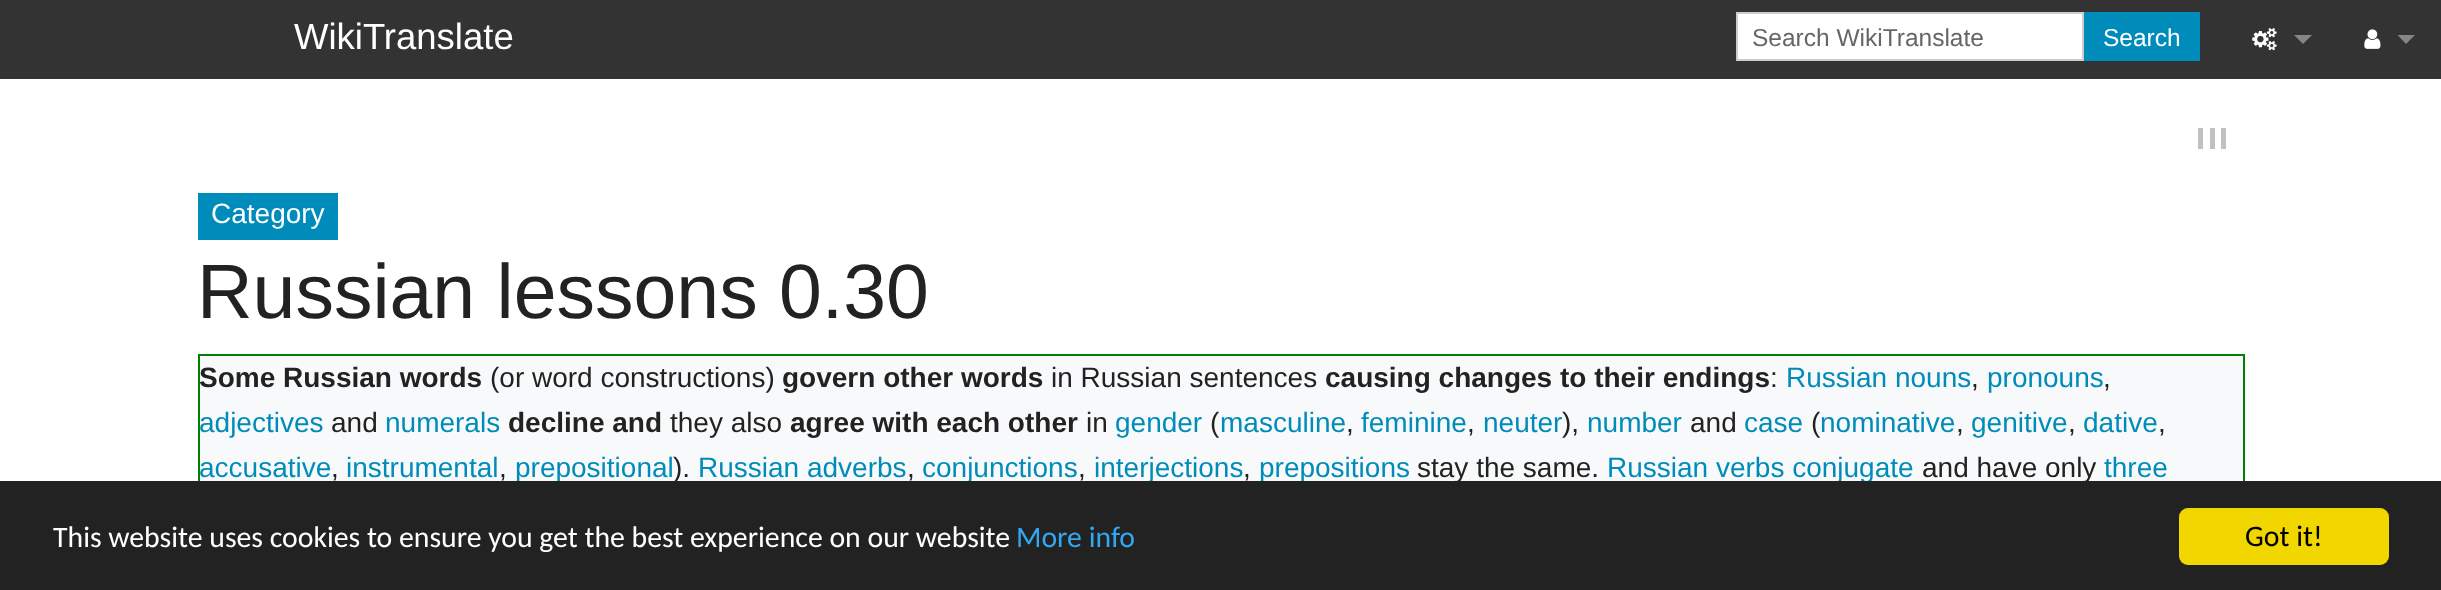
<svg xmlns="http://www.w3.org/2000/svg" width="2441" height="590">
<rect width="100%" height="100%" fill="#fff"/>
<rect width="2441" height="79" fill="#333"/>
<text x="294" y="49" style="font-family:Liberation Sans;font-size:36.5px;fill:#fff">WikiTranslate</text>
<rect x="1737" y="13" width="346" height="47" fill="#fff" stroke="#ccc" stroke-width="2"/>
<text x="1752" y="46" style="font-family:Liberation Sans;font-size:24.5px;fill:#666">Search WikiTranslate</text>
<rect x="2084" y="12" width="116" height="49" fill="#008cba"/>
<text x="2103" y="46" style="font-family:Liberation Sans;font-size:24.5px;fill:#fff">Search</text>
<image x="2252" y="28" width="25" height="23" href="media/1.png"/>
<path d="M2294 35h18l-9 9z" fill="#858585"/>
<image x="2364" y="29" width="17" height="20" href="media/2.png"/>
<path d="M2397.5 35h17.5l-9 9z" fill="#858585"/>
<rect x="2210" y="128" width="5" height="21" fill="#c0c0c0"/>
<rect x="2198" y="128" width="5" height="21" fill="#c0c0c0"/>
<rect x="2221" y="128" width="5" height="21" fill="#c0c0c0"/>
<rect x="198" y="193" width="140" height="47" fill="#008cba"/>
<text x="211" y="223" style="font-family:Liberation Sans;font-size:28px;fill:#fff">Category</text>
<text x="197" y="318" style="font-family:Liberation Sans;font-size:77px;fill:#222">Russian lessons 0.30</text>
<rect x="200" y="356" width="2043" height="125" fill="#f8f9fa"/>
<rect x="199" y="355" width="2045" height="181" fill="none" stroke="#008000" stroke-width="2"/>
<text x="199" y="387" style="font-family:Liberation Sans;font-size:28px;font-weight:bold;fill:#222">Some Russian words</text>
<text x="490" y="387" style="font-family:Liberation Sans;font-size:28px;fill:#222">(or word constructions)</text>
<text x="782" y="387" style="font-family:Liberation Sans;font-size:28px;font-weight:bold;fill:#222">govern other words</text>
<text x="1051" y="387" style="font-family:Liberation Sans;font-size:28px;fill:#222">in Russian sentences</text>
<text x="1325" y="387" style="font-family:Liberation Sans;font-size:28px;font-weight:bold;fill:#222">causing changes to their endings</text>
<text x="1770" y="387" style="font-family:Liberation Sans;font-size:28px;fill:#222">:</text>
<text x="1786" y="387" style="font-family:Liberation Sans;font-size:28px;fill:#008cba">Russian nouns</text>
<text x="1971" y="387" style="font-family:Liberation Sans;font-size:28px;fill:#222">,</text>
<text x="1987" y="387" style="font-family:Liberation Sans;font-size:28px;fill:#008cba">pronouns</text>
<text x="2103" y="387" style="font-family:Liberation Sans;font-size:28px;fill:#222">,</text>
<text x="199" y="432" style="font-family:Liberation Sans;font-size:28px;fill:#008cba">adjectives</text>
<text x="331" y="432" style="font-family:Liberation Sans;font-size:28px;fill:#222">and</text>
<text x="385" y="432" style="font-family:Liberation Sans;font-size:28px;fill:#008cba">numerals</text>
<text x="508" y="432" style="font-family:Liberation Sans;font-size:28px;font-weight:bold;fill:#222">decline and</text>
<text x="670" y="432" style="font-family:Liberation Sans;font-size:28px;fill:#222">they also</text>
<text x="790" y="432" style="font-family:Liberation Sans;font-size:28px;font-weight:bold;fill:#222">agree with each other</text>
<text x="1086" y="432" style="font-family:Liberation Sans;font-size:28px;fill:#222">in</text>
<text x="1115" y="432" style="font-family:Liberation Sans;font-size:28px;fill:#008cba">gender</text>
<text x="1210" y="432" style="font-family:Liberation Sans;font-size:28px;fill:#222">(</text>
<text x="1220" y="432" style="font-family:Liberation Sans;font-size:28px;fill:#008cba">masculine</text>
<text x="1346" y="432" style="font-family:Liberation Sans;font-size:28px;fill:#222">,</text>
<text x="1361" y="432" style="font-family:Liberation Sans;font-size:28px;fill:#008cba">feminine</text>
<text x="1467" y="432" style="font-family:Liberation Sans;font-size:28px;fill:#222">,</text>
<text x="1483" y="432" style="font-family:Liberation Sans;font-size:28px;fill:#008cba">neuter</text>
<text x="1562" y="432" style="font-family:Liberation Sans;font-size:28px;fill:#222">),</text>
<text x="1587" y="432" style="font-family:Liberation Sans;font-size:28px;fill:#008cba">number</text>
<text x="1690" y="432" style="font-family:Liberation Sans;font-size:28px;fill:#222">and</text>
<text x="1744" y="432" style="font-family:Liberation Sans;font-size:28px;fill:#008cba">case</text>
<text x="1811" y="432" style="font-family:Liberation Sans;font-size:28px;fill:#222">(</text>
<text x="1820" y="432" style="font-family:Liberation Sans;font-size:28px;fill:#008cba">nominative</text>
<text x="1956" y="432" style="font-family:Liberation Sans;font-size:28px;fill:#222">,</text>
<text x="1971" y="432" style="font-family:Liberation Sans;font-size:28px;fill:#008cba">genitive</text>
<text x="2068" y="432" style="font-family:Liberation Sans;font-size:28px;fill:#222">,</text>
<text x="2083" y="432" style="font-family:Liberation Sans;font-size:28px;fill:#008cba">dative</text>
<text x="2158" y="432" style="font-family:Liberation Sans;font-size:28px;fill:#222">,</text>
<text x="199" y="477" style="font-family:Liberation Sans;font-size:28px;fill:#008cba">accusative</text>
<text x="331" y="477" style="font-family:Liberation Sans;font-size:28px;fill:#222">,</text>
<text x="346" y="477" style="font-family:Liberation Sans;font-size:28px;fill:#008cba">instrumental</text>
<text x="499" y="477" style="font-family:Liberation Sans;font-size:28px;fill:#222">,</text>
<text x="515" y="477" style="font-family:Liberation Sans;font-size:28px;fill:#008cba">prepositional</text>
<text x="673" y="477" style="font-family:Liberation Sans;font-size:28px;fill:#222">).</text>
<text x="698" y="477" style="font-family:Liberation Sans;font-size:28px;fill:#008cba">Russian adverbs</text>
<text x="907" y="477" style="font-family:Liberation Sans;font-size:28px;fill:#222">,</text>
<text x="922" y="477" style="font-family:Liberation Sans;font-size:28px;fill:#008cba">conjunctions</text>
<text x="1078" y="477" style="font-family:Liberation Sans;font-size:28px;fill:#222">,</text>
<text x="1094" y="477" style="font-family:Liberation Sans;font-size:28px;fill:#008cba">interjections</text>
<text x="1243" y="477" style="font-family:Liberation Sans;font-size:28px;fill:#222">,</text>
<text x="1259" y="477" style="font-family:Liberation Sans;font-size:28px;fill:#008cba">prepositions</text>
<text x="1417" y="477" style="font-family:Liberation Sans;font-size:28px;fill:#222">stay the same.</text>
<text x="1607" y="477" style="font-family:Liberation Sans;font-size:28px;fill:#008cba">Russian verbs conjugate</text>
<text x="1922" y="477" style="font-family:Liberation Sans;font-size:28px;fill:#222">and have only</text>
<text x="2104" y="477" style="font-family:Liberation Sans;font-size:28px;fill:#008cba">three</text>
<rect y="481" width="2441" height="109" fill="#222"/>
<text x="53" y="547" style="font-family:Carlito;font-size:29.75px;fill:#fff">This website uses cookies to ensure you get the best experience on our website</text>
<text x="1016" y="547" style="font-family:Carlito;font-size:29.75px;fill:#31a8f0">More info</text>
<rect x="2179" y="508" width="210" height="57" rx="9" fill="#f1d600"/>
<text x="2245" y="546" style="font-family:Carlito;font-size:29.75px;fill:#000">Got it!</text>
</svg>
